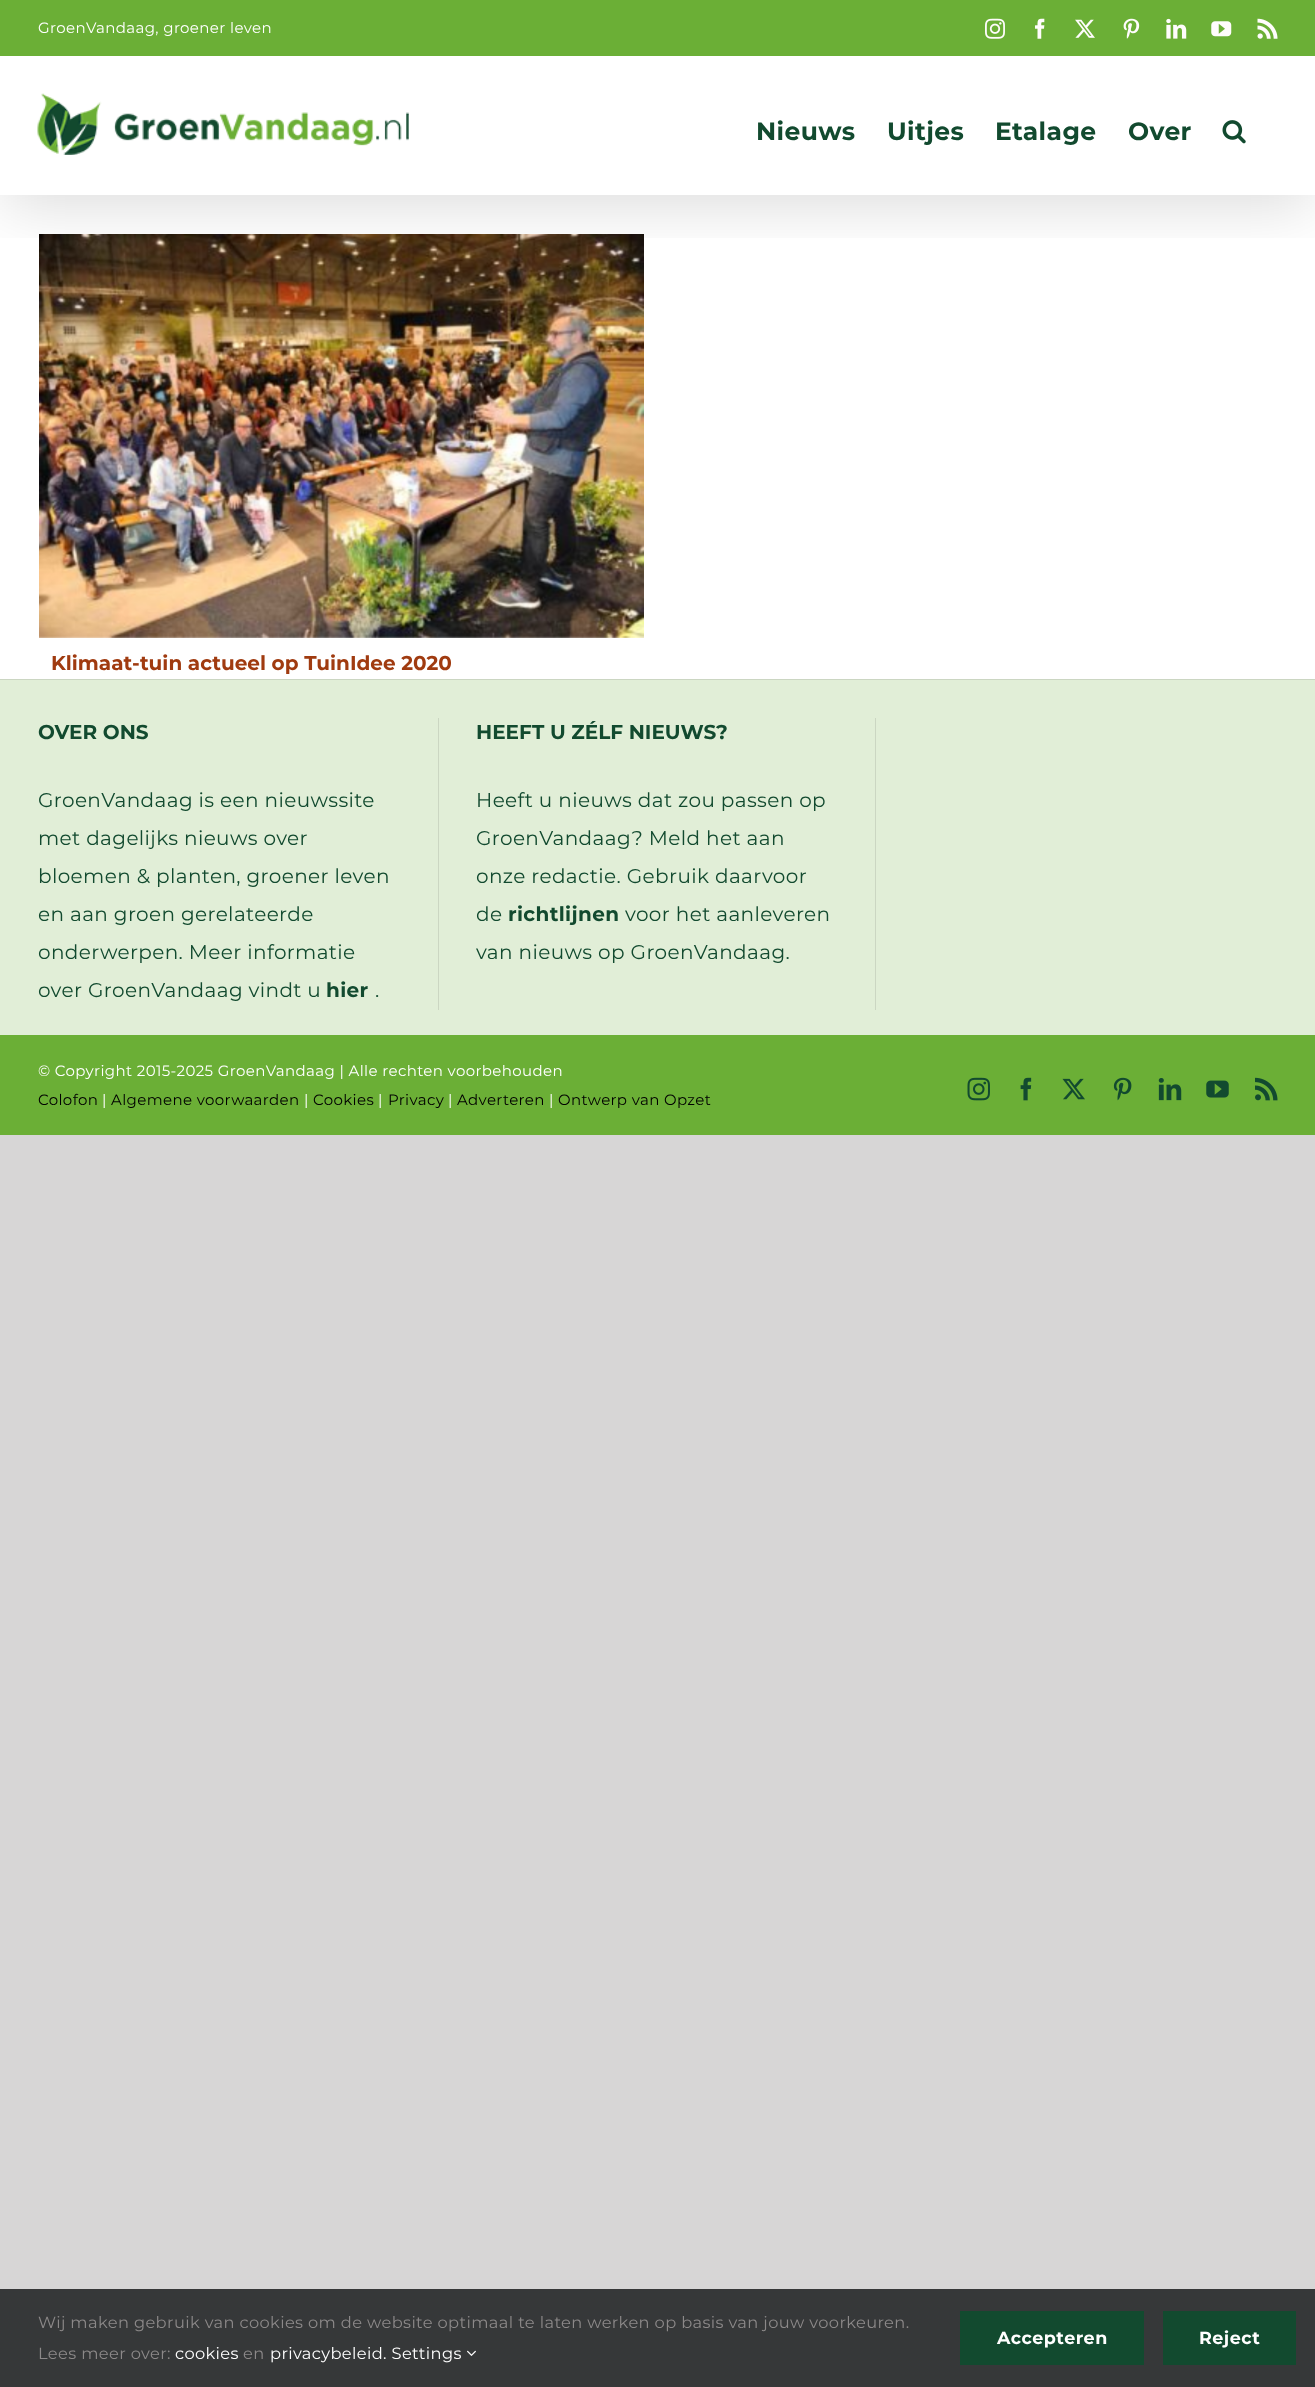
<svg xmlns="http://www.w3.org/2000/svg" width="1315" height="2387">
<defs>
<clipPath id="clip1"><rect x="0" y="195" width="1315" height="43"/></clipPath>
</defs>
<rect width="100%" height="100%" fill="#d7d6d6"/>
<rect y="56" width="1315" height="623" fill="#fff"/>
<image x="39" y="234" width="605" height="404" href="media/10.png"/>
<g clip-path="url(#clip1)">
<rect x="3" y="15" width="1310" height="190" fill="#00000024" filter="blur(31px)"/>
</g>
<rect width="1315" height="56" fill="#6baf36"/>
<text x="38" y="33" style="font-family:Montserrat;font-size:15px;letter-spacing:0.38px;fill:#fff">GroenVandaag, groener leven</text>
<image x="985" y="18" width="20" height="21" href="media/1.png"/>
<image x="1035" y="18" width="10" height="21" href="media/2.png"/>
<image x="1075" y="19" width="20" height="19" href="media/3.png"/>
<image x="1123" y="18" width="17" height="21" href="media/4.png"/>
<image x="1166" y="18" width="21" height="21" href="media/5.png"/>
<image x="1211" y="21" width="21" height="16" href="media/6.png"/>
<image x="1257" y="18" width="21" height="21" href="media/7.png"/>
<image x="37" y="93" width="372" height="62" href="media/8.png"/>
<text x="756" y="140" style="font-family:Montserrat;font-size:25px;font-weight:bold;letter-spacing:0.38px;fill:#124a2f">Nieuws</text>
<text x="887" y="140" style="font-family:Montserrat;font-size:25px;font-weight:bold;letter-spacing:0.38px;fill:#124a2f">Uitjes</text>
<text x="995" y="140" style="font-family:Montserrat;font-size:25px;font-weight:bold;letter-spacing:0.38px;fill:#124a2f">Etalage</text>
<text x="1128" y="140" style="font-family:Montserrat;font-size:25px;font-weight:bold;letter-spacing:0.38px;fill:#124a2f">Over</text>
<image x="1222" y="120" width="24" height="24" href="media/9.png"/>
<text x="51" y="670" style="font-family:Montserrat;font-size:20px;font-weight:bold;fill:#a03b10">Klimaat-tuin actueel op TuinIdee 2020</text>
<rect y="680" width="1315" height="355" fill="#e1eed7"/>
<rect y="679" width="1315" height="1" fill="#cbd6c2"/>
<rect x="438" y="718" width="1" height="292" fill="#cbd6c2"/>
<text x="38" y="739" style="font-family:Montserrat;font-size:20px;font-weight:bold;fill:#124a2f">OVER ONS</text>
<text x="38" y="807" style="font-family:Montserrat;font-size:20px;letter-spacing:0.38px;fill:#124a2f">GroenVandaag is een nieuwssite</text>
<text x="38" y="845" style="font-family:Montserrat;font-size:20px;letter-spacing:0.38px;fill:#124a2f">met dagelijks nieuws over</text>
<text x="38" y="883" style="font-family:Montserrat;font-size:20px;letter-spacing:0.38px;fill:#124a2f">bloemen &amp; planten, groener leven</text>
<text x="38" y="921" style="font-family:Montserrat;font-size:20px;letter-spacing:0.38px;fill:#124a2f">en aan groen gerelateerde</text>
<text x="38" y="959" style="font-family:Montserrat;font-size:20px;letter-spacing:0.38px;fill:#124a2f">onderwerpen. Meer informatie</text>
<text x="38" y="997" style="font-family:Montserrat;font-size:20px;letter-spacing:0.38px;fill:#124a2f">over GroenVandaag vindt u</text>
<text x="326" y="997" style="font-family:Montserrat;font-size:20px;font-weight:bold;letter-spacing:0.38px;fill:#124a2f">hier</text>
<text x="375" y="997" style="font-family:Montserrat;font-size:20px;letter-spacing:0.38px;fill:#124a2f">.</text>
<rect x="875" y="718" width="1" height="292" fill="#cbd6c2"/>
<text x="476" y="739" style="font-family:Montserrat;font-size:20px;font-weight:bold;fill:#124a2f">HEEFT U ZÉLF NIEUWS?</text>
<text x="476" y="807" style="font-family:Montserrat;font-size:20px;letter-spacing:0.38px;fill:#124a2f">Heeft u nieuws dat zou passen op</text>
<text x="476" y="845" style="font-family:Montserrat;font-size:20px;letter-spacing:0.38px;fill:#124a2f">GroenVandaag? Meld het aan</text>
<text x="476" y="883" style="font-family:Montserrat;font-size:20px;letter-spacing:0.38px;fill:#124a2f">onze redactie. Gebruik daarvoor</text>
<text x="476" y="921" style="font-family:Montserrat;font-size:20px;letter-spacing:0.38px;fill:#124a2f">de</text>
<text x="508" y="921" style="font-family:Montserrat;font-size:20px;font-weight:bold;letter-spacing:0.38px;fill:#124a2f">richtlijnen</text>
<text x="625" y="921" style="font-family:Montserrat;font-size:20px;letter-spacing:0.38px;fill:#124a2f">voor het aanleveren</text>
<text x="476" y="959" style="font-family:Montserrat;font-size:20px;letter-spacing:0.38px;fill:#124a2f">van nieuws op GroenVandaag.</text>
<rect y="1035" width="1315" height="100" fill="#6baf36"/>
<text x="38" y="1076" style="font-family:Montserrat;font-size:15px;letter-spacing:0.38px;fill:#fff">© Copyright 2015-2025 GroenVandaag | Alle rechten voorbehouden</text>
<text x="38" y="1105" style="font-family:Montserrat;font-size:15px;letter-spacing:0.38px;fill:#000">Colofon</text>
<text x="102" y="1105" style="font-family:Montserrat;font-size:15px;letter-spacing:0.38px;fill:#fff">|</text>
<text x="111" y="1105" style="font-family:Montserrat;font-size:15px;letter-spacing:0.38px;fill:#000">Algemene voorwaarden</text>
<text x="304" y="1105" style="font-family:Montserrat;font-size:15px;letter-spacing:0.38px;fill:#fff">|</text>
<text x="313" y="1105" style="font-family:Montserrat;font-size:15px;letter-spacing:0.38px;fill:#000">Cookies</text>
<text x="378" y="1105" style="font-family:Montserrat;font-size:15px;letter-spacing:0.38px;fill:#fff">|</text>
<text x="388" y="1105" style="font-family:Montserrat;font-size:15px;letter-spacing:0.38px;fill:#000">Privacy</text>
<text x="448" y="1105" style="font-family:Montserrat;font-size:15px;letter-spacing:0.38px;fill:#fff">|</text>
<text x="457" y="1105" style="font-family:Montserrat;font-size:15px;letter-spacing:0.38px;fill:#000">Adverteren</text>
<text x="549" y="1105" style="font-family:Montserrat;font-size:15px;letter-spacing:0.38px;fill:#fff">|</text>
<text x="558" y="1105" style="font-family:Montserrat;font-size:15px;letter-spacing:0.38px;fill:#000">Ontwerp van Opzet</text>
<image x="967" y="1077" width="23" height="24" href="media/11.png"/>
<image x="1020" y="1077" width="12" height="24" href="media/12.png"/>
<image x="1062" y="1078" width="23" height="22" href="media/13.png"/>
<image x="1113" y="1077" width="19" height="24" href="media/14.png"/>
<image x="1158" y="1078" width="24" height="23" href="media/15.png"/>
<image x="1206" y="1080" width="23" height="18" href="media/16.png"/>
<image x="1255" y="1077" width="23" height="24" href="media/17.png"/>
<rect y="2289" width="1315" height="98" fill="#363839"/>
<text x="38" y="2328" style="font-family:Montserrat;font-size:16.25px;letter-spacing:0.38px;fill:#8c8989">Wij maken gebruik van cookies om de website optimaal te laten werken op basis van jouw voorkeuren.</text>
<text x="38" y="2359" style="font-family:Montserrat;font-size:16.25px;letter-spacing:0.38px;fill:#8c8989">Lees meer over:</text>
<text x="175" y="2359" style="font-family:Montserrat;font-size:16.25px;letter-spacing:0.38px;fill:#fff">cookies</text>
<text x="243" y="2359" style="font-family:Montserrat;font-size:16.25px;letter-spacing:0.38px;fill:#8c8989">en</text>
<text x="270" y="2359" style="font-family:Montserrat;font-size:16.25px;letter-spacing:0.38px;fill:#fff">privacybeleid. Settings</text>
<image x="467" y="2350" width="9" height="6" href="media/18.png"/>
<rect x="960" y="2311" width="184" height="54" fill="#124a2f"/>
<text x="997" y="2344" style="font-family:Montserrat;font-size:17.5px;font-weight:bold;letter-spacing:0.5px;fill:#fff">Accepteren</text>
<rect x="1163" y="2311" width="133" height="54" fill="#124a2f"/>
<text x="1199" y="2344" style="font-family:Montserrat;font-size:17.5px;font-weight:bold;letter-spacing:0.5px;fill:#fff">Reject</text>
</svg>
